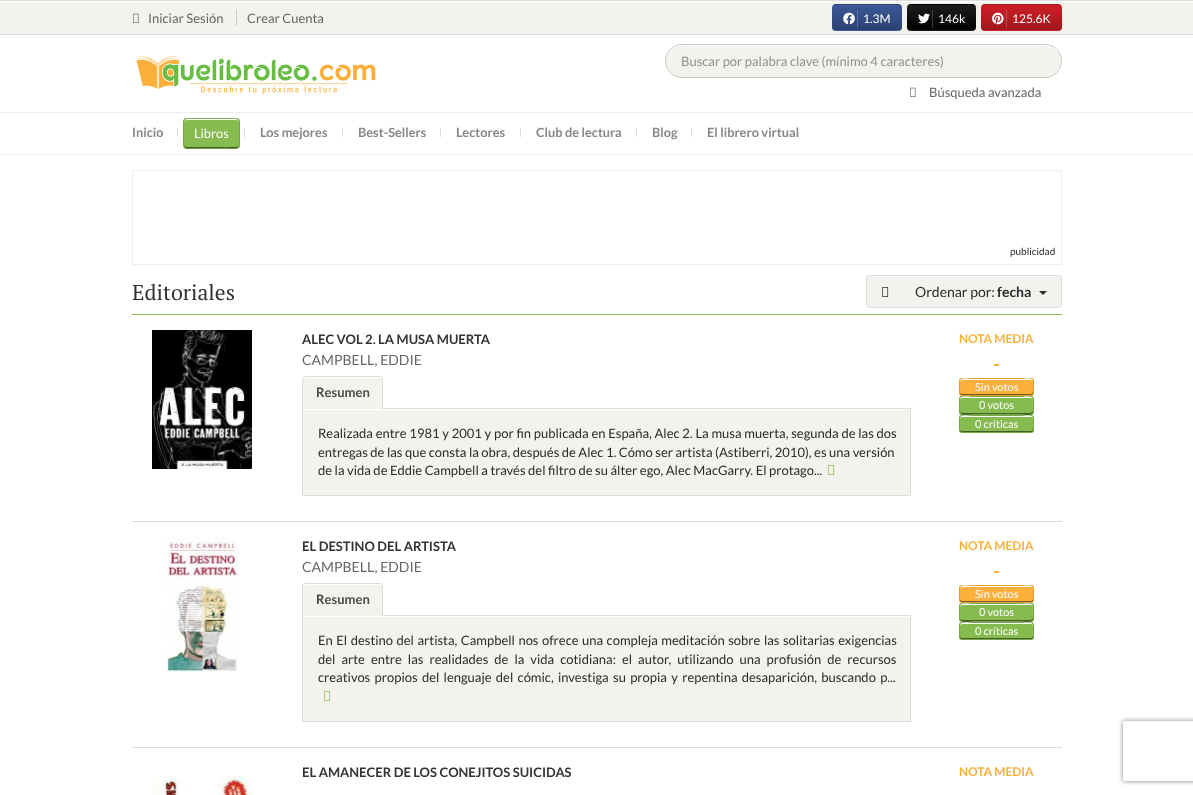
<svg xmlns="http://www.w3.org/2000/svg" width="1193" height="795">
<defs>
<clipPath id="clip1"><rect x="832" y="4" width="70" height="27" rx="4"/></clipPath>
<linearGradient id="g1" gradientUnits="userSpaceOnUse" x1="867" y1="-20" x2="867" y2="5"><stop offset="0" stop-color="#3b5998"/><stop offset="1" stop-color="#2b4170"/></linearGradient>
<linearGradient id="g2" gradientUnits="userSpaceOnUse" x1="867" y1="5" x2="867" y2="30"><stop offset="0" stop-color="#3b5998"/><stop offset="1" stop-color="#2b4170"/></linearGradient>
<linearGradient id="g3" gradientUnits="userSpaceOnUse" x1="867" y1="5" x2="867" y2="30"><stop offset="0" stop-color="#627aad"/><stop offset="1" stop-color="#55678d"/></linearGradient>
<linearGradient id="g4" gradientUnits="userSpaceOnUse" x1="867" y1="30" x2="867" y2="55"><stop offset="0" stop-color="#3b5998"/><stop offset="1" stop-color="#2b4170"/></linearGradient>
<clipPath id="clip2"><rect x="907" y="4" width="69" height="27" rx="4"/></clipPath>
<linearGradient id="g5" gradientUnits="userSpaceOnUse" x1="942" y1="-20" x2="942" y2="5"><stop offset="0" stop-color="#1d1d1d"/><stop offset="1" stop-color="#000"/></linearGradient>
<linearGradient id="g6" gradientUnits="userSpaceOnUse" x1="942" y1="5" x2="942" y2="30"><stop offset="0" stop-color="#1d1d1d"/><stop offset="1" stop-color="#000"/></linearGradient>
<linearGradient id="g7" gradientUnits="userSpaceOnUse" x1="942" y1="5" x2="942" y2="30"><stop offset="0" stop-color="#4a4a4a"/><stop offset="1" stop-color="#333"/></linearGradient>
<linearGradient id="g8" gradientUnits="userSpaceOnUse" x1="942" y1="30" x2="942" y2="55"><stop offset="0" stop-color="#1d1d1d"/><stop offset="1" stop-color="#000"/></linearGradient>
<clipPath id="clip3"><rect x="981" y="4" width="81" height="27" rx="4"/></clipPath>
<linearGradient id="g9" gradientUnits="userSpaceOnUse" x1="1022" y1="-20" x2="1022" y2="5"><stop offset="0" stop-color="#cb2027"/><stop offset="1" stop-color="#a0171c"/></linearGradient>
<linearGradient id="g10" gradientUnits="userSpaceOnUse" x1="1022" y1="5" x2="1022" y2="30"><stop offset="0" stop-color="#cb2027"/><stop offset="1" stop-color="#a0171c"/></linearGradient>
<linearGradient id="g11" gradientUnits="userSpaceOnUse" x1="1022" y1="5" x2="1022" y2="30"><stop offset="0" stop-color="#d54d52"/><stop offset="1" stop-color="#b34549"/></linearGradient>
<linearGradient id="g12" gradientUnits="userSpaceOnUse" x1="1022" y1="30" x2="1022" y2="55"><stop offset="0" stop-color="#cb2027"/><stop offset="1" stop-color="#a0171c"/></linearGradient>
<clipPath id="clip4"><path d="M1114 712h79v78h-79zm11 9h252c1 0 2 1 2 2v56c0 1-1 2-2 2h-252c-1 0-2-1-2-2v-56c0-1 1-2 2-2z" clip-rule="evenodd"/></clipPath>
</defs>
<rect width="100%" height="100%" fill="#fff"/>
<rect y="2" width="1193" height="32" fill="#f3f2ed"/>
<rect width="1193" height="1" fill="#ddd"/>
<rect y="34" width="1193" height="1" fill="#ddd"/>
<rect x="236" y="10" width="1" height="16" fill="#ccc"/>
<image x="133" y="13" width="6" height="10" href="media/1.png"/>
<text x="148" y="23" style="font-family:Lato;font-size:13px;fill:#666">Iniciar Sesión</text>
<text x="247" y="23" style="font-family:Lato;font-size:13px;fill:#666">Crear Cuenta</text>
<g clip-path="url(#clip1)">
<rect x="832" y="4" width="70" height="1" fill="url(#g1)"/>
<rect x="832" y="5" width="70" height="25" fill="url(#g2)"/>
</g>
<rect x="857" y="10" width="1" height="18" fill="url(#g3)"/>
<g clip-path="url(#clip1)">
<rect x="832" y="30" width="70" height="1" fill="url(#g4)"/>
</g>
<image x="843" y="12" width="12" height="13" href="media/2.png"/>
<text x="863" y="23" style="font-family:Lato;font-size:12px;fill:#fff">1.3M</text>
<g clip-path="url(#clip2)">
<rect x="907" y="4" width="69" height="1" fill="url(#g5)"/>
<rect x="907" y="5" width="69" height="25" fill="url(#g6)"/>
</g>
<rect x="932" y="10" width="1" height="18" fill="url(#g7)"/>
<g clip-path="url(#clip2)">
<rect x="907" y="30" width="69" height="1" fill="url(#g8)"/>
</g>
<image x="918" y="13" width="12" height="11" href="media/3.png"/>
<text x="938" y="23" style="font-family:Lato;font-size:12px;fill:#fff">146k</text>
<g clip-path="url(#clip3)">
<rect x="981" y="4" width="81" height="1" fill="url(#g9)"/>
<rect x="981" y="5" width="81" height="25" fill="url(#g10)"/>
</g>
<rect x="1006" y="10" width="1" height="18" fill="url(#g11)"/>
<g clip-path="url(#clip3)">
<rect x="981" y="30" width="81" height="1" fill="url(#g12)"/>
</g>
<image x="992" y="12" width="12" height="13" href="media/4.png"/>
<text x="1012" y="23" style="font-family:Lato;font-size:12px;fill:#fff">125.6K</text>
<image x="136" y="56" width="240" height="39" href="media/5.png"/>
<rect x="665" y="44" width="397" height="34" rx="17" fill="#f3f2ed"/>
<path d="M682 46h363c9 0 16 7 16 15c0-8-7-16-16-16h-363c-9 0-16 8-16 16c0-8 7-15 16-15z" fill="#fff"/>
<rect x="665.5" y="44.5" width="396" height="33" rx="16.5" fill="none" stroke="#ccc"/>
<text x="681" y="66" style="font-family:Lato;font-size:13px;fill:#92918e">Buscar por palabra clave (mínimo 4 caracteres)</text>
<image x="910" y="87" width="6" height="10" href="media/6.png"/>
<text x="929" y="97" style="font-family:Lato;font-size:13px;fill:#666">Búsqueda avanzada</text>
<rect y="112" width="1193" height="1" fill="#eee"/>
<rect y="154" width="1193" height="1" fill="#eee"/>
<text x="132" y="137" style="font-family:Lato;font-size:12.75px;font-weight:bold;fill:#888">Inicio</text>
<rect x="177" y="128" width="1" height="9" fill="#ddd"/>
<rect x="183" y="118" width="57" height="31" rx="4" fill="#86bb50"/>
<path d="M187 120h49c2 0 3 1 3 3c0-6-7-4-11-4h-33c-4 0-11-2-11 4c0-2 1-3 3-3z" fill="#fff"/>
<path d="M184 144c0 6 7 4 11 4h33c4 0 11 2 11-4c0 2-1 3-3 3h-49c-2 0-3-1-3-3z" fill="#435e28"/>
<rect x="183.5" y="118.5" width="56" height="30" rx="3.5" fill="none" stroke="#0000001a"/>
<text x="194" y="138" style="font-family:Lato;font-size:12.75px;fill:#fff">Libros</text>
<rect x="244" y="128" width="1" height="11" fill="#ddd"/>
<text x="260" y="137" style="font-family:Lato;font-size:12.75px;font-weight:bold;fill:#888">Los mejores</text>
<rect x="342" y="128" width="1" height="9" fill="#ddd"/>
<text x="358" y="137" style="font-family:Lato;font-size:12.75px;font-weight:bold;fill:#888">Best-Sellers</text>
<rect x="440" y="128" width="1" height="9" fill="#ddd"/>
<text x="456" y="137" style="font-family:Lato;font-size:12.75px;font-weight:bold;fill:#888">Lectores</text>
<rect x="520" y="128" width="1" height="9" fill="#ddd"/>
<text x="536" y="137" style="font-family:Lato;font-size:12.75px;font-weight:bold;fill:#888">Club de lectura</text>
<rect x="636" y="128" width="1" height="9" fill="#ddd"/>
<text x="652" y="137" style="font-family:Lato;font-size:12.75px;font-weight:bold;fill:#888">Blog</text>
<rect x="691" y="128" width="1" height="9" fill="#ddd"/>
<text x="707" y="137" style="font-family:Lato;font-size:12.75px;font-weight:bold;fill:#888">El librero virtual</text>
<rect x="132.5" y="170.5" width="929" height="94" fill="none" stroke="#eee"/>
<text x="1010" y="255" style="font-family:Lato;font-size:10px;fill:#292b2c">publicidad</text>
<rect x="132" y="314" width="930" height="1" fill="#86bb50"/>
<text x="132" y="300" style="font-family:PT Serif;font-size:21.5px;fill:#333">Editoriales</text>
<rect x="866" y="275" width="196" height="33" rx="4" fill="#f3f2ed"/>
<path d="M870 277h188c2 0 3 1 3 3c0-2 0-4-3-4h-188c-3 0-3 2-3 4c0-2 1-3 3-3z" fill="#fff"/>
<rect x="866.5" y="275.5" width="195" height="32" rx="3.5" fill="none" stroke="#ddd"/>
<image x="882" y="287" width="7" height="10" href="media/7.png"/>
<text x="915" y="297" style="font-family:Lato;font-size:14px;fill:#292b2c">Ordenar por:</text>
<text x="997" y="297" style="font-family:Lato;font-size:14px;font-weight:bold;fill:#292b2c">fecha</text>
<path d="M1039 291h8l-4 4z" fill="#292b2c"/>
<rect x="132" y="521" width="930" height="1" fill="#ddd"/>
<image x="152" y="330" width="100" height="139" href="media/8.png"/>
<text x="302" y="344" style="font-family:Lato;font-size:13px;font-weight:bold;fill:#333">ALEC VOL 2. LA MUSA MUERTA</text>
<text x="302" y="365" style="font-family:Lato;font-size:14px;fill:#666">CAMPBELL, EDDIE</text>
<rect x="383" y="408" width="528" height="1" fill="#ddd"/>
<path d="M306 376h73c2 0 4 2 4 4v29h-81v-29c0-2 2-4 4-4z" fill="#f3f2ed"/>
<path d="M306 378h74c1 0 2 1 2 2c0-2-1-3-2-3h-62c-1 0-15-3-15 3c0-1 1-2 3-2z" fill="#fff"/>
<path d="M306 376h74c1 0 3 2 3 4v29h-81v-29c0-2 2-4 4-4zm0 1h74c1 0 2 1 2 3v29h-79v-29c0-2 1-3 3-3z" fill="#ddd" fill-rule="evenodd"/>
<text x="316" y="397" style="font-family:Lato;font-size:13px;font-weight:bold;fill:#464a4c">Resumen</text>
<rect x="303" y="410" width="607" height="85" fill="#f3f2ed"/>
<rect x="910" y="409" width="1" height="87" fill="#ddd"/>
<rect x="302" y="495" width="609" height="1" fill="#ddd"/>
<rect x="302" y="409" width="1" height="87" fill="#ddd"/>
<text x="318" y="438" word-spacing="0.25" style="font-family:Lato;font-size:13px;fill:#292b2c">Realizada entre 1981 y 2001 y por fin publicada en España, Alec 2. La musa muerta, segunda de las dos</text>
<text x="318" y="457" style="font-family:Lato;font-size:13px;fill:#292b2c">entregas de las que consta la obra, después de Alec 1. Cómo ser artista (Astiberri, 2010), es una versión</text>
<text x="318" y="475" style="font-family:Lato;font-size:13px;fill:#292b2c">de la vida de Eddie Campbell a través del filtro de su álter ego, Alec MacGarry. El protago...</text>
<image x="828" y="465" width="7" height="10" href="media/9.png"/>
<text x="959" y="343" style="font-family:Lato;font-size:12px;font-weight:bold;fill:#fcb03b">NOTA MEDIA</text>
<text x="993" y="371" style="font-family:Lato;font-size:20px;font-weight:bold;fill:#fcb03b">-</text>
<rect x="959" y="378" width="75" height="18" rx="3" fill="#fcb03b"/>
<path d="M962 380h70l1 2c0-6-9-3-13-3h-46c-5 0-14-3-14 3c0-1 1-2 2-2z" fill="#fff"/>
<path d="M960 393c0 1 1 2 2 2h69c1 0 2-1 2-2v-1l-1 2h-70z" fill="#7e581e"/>
<rect x="959.5" y="378.5" width="74" height="17" rx="2.5" fill="none" stroke="#0000001a"/>
<text x="975" y="391" style="font-family:Lato;font-size:11px;fill:#fff">Sin votos</text>
<rect x="959" y="396" width="75" height="19" rx="3" fill="#86bb50"/>
<path d="M962 398h69c1 0 2 1 2 2c0-6-10-3-13-3h-46c-4 0-14-3-14 3c0-1 1-2 2-2z" fill="#fff"/>
<path d="M960 411c0 6 10 3 14 3h46c3 0 13 3 13-3l-1 1l-1 1h-69c-1 0-2-1-2-2z" fill="#435e28"/>
<rect x="959.5" y="396.5" width="74" height="18" rx="2.5" fill="none" stroke="#0000001a"/>
<text x="979" y="409" style="font-family:Lato;font-size:11px;fill:#fff">0 votos</text>
<rect x="959" y="415" width="75" height="18" rx="3" fill="#86bb50"/>
<path d="M962 417h70l1 2c0-6-9-3-13-3h-46c-5 0-14-3-14 3c0-1 1-2 2-2z" fill="#fff"/>
<path d="M960 430c0 1 1 2 2 2h69c1 0 2-1 2-2v-1l-1 2h-70z" fill="#435e28"/>
<rect x="959.5" y="415.5" width="74" height="17" rx="2.5" fill="none" stroke="#0000001a"/>
<text x="975" y="428" style="font-family:Lato;font-size:11px;fill:#fff">0 críticas</text>
<rect x="132" y="747" width="930" height="1" fill="#ddd"/>
<image x="166" y="537" width="73" height="135" href="media/10.png"/>
<text x="302" y="551" style="font-family:Lato;font-size:13px;font-weight:bold;fill:#333">EL DESTINO DEL ARTISTA</text>
<text x="302" y="572" style="font-family:Lato;font-size:14px;fill:#666">CAMPBELL, EDDIE</text>
<rect x="383" y="615" width="528" height="1" fill="#ddd"/>
<path d="M306 583h73c2 0 4 2 4 4v29h-81v-29c0-2 2-4 4-4z" fill="#f3f2ed"/>
<path d="M306 585h74c1 0 2 1 2 3c0-7-9-4-15-4h-49c-6 0-15-3-15 4c0-2 1-3 3-3z" fill="#fff"/>
<path d="M306 583h74c1 0 3 2 3 3v30h-81v-30c0-1 2-3 4-3zm0 1h74c1 0 2 1 2 2v30h-79v-30c0-1 1-2 3-2z" fill="#ddd" fill-rule="evenodd"/>
<text x="316" y="604" style="font-family:Lato;font-size:13px;font-weight:bold;fill:#464a4c">Resumen</text>
<rect x="303" y="617" width="607" height="104" fill="#f3f2ed"/>
<rect x="910" y="616" width="1" height="106" fill="#ddd"/>
<rect x="302" y="721" width="609" height="1" fill="#ddd"/>
<rect x="302" y="616" width="1" height="106" fill="#ddd"/>
<text x="318" y="645" word-spacing="1" style="font-family:Lato;font-size:13px;fill:#292b2c">En El destino del artista, Campbell nos ofrece una compleja meditación sobre las solitarias exigencias</text>
<text x="318" y="664" word-spacing="3.5" style="font-family:Lato;font-size:13px;fill:#292b2c">del arte entre las realidades de la vida cotidiana: el autor, utilizando una profusión de recursos</text>
<text x="318" y="682" word-spacing="1.8" style="font-family:Lato;font-size:13px;fill:#292b2c">creativos propios del lenguaje del cómic, investiga su propia y repentina desaparición, buscando p...</text>
<image x="324" y="691" width="7" height="10" href="media/9.png"/>
<text x="959" y="550" style="font-family:Lato;font-size:12px;font-weight:bold;fill:#fcb03b">NOTA MEDIA</text>
<text x="993" y="578" style="font-family:Lato;font-size:20px;font-weight:bold;fill:#fcb03b">-</text>
<rect x="959" y="585" width="75" height="18" rx="3" fill="#fcb03b"/>
<path d="M962 587h70l1 2c0-6-9-3-13-3h-46c-5 0-14-3-14 3c0-1 1-2 2-2z" fill="#fff"/>
<path d="M960 600c0 1 1 2 2 2h69c1 0 2-1 2-2v-1l-1 2h-70z" fill="#7e581e"/>
<rect x="959.5" y="585.5" width="74" height="17" rx="2.5" fill="none" stroke="#0000001a"/>
<text x="975" y="598" style="font-family:Lato;font-size:11px;fill:#fff">Sin votos</text>
<rect x="959" y="603" width="75" height="19" rx="3" fill="#86bb50"/>
<path d="M962 605h69c1 0 2 1 2 2c0-6-10-3-13-3h-46c-4 0-14-3-14 3c0-1 1-2 2-2z" fill="#fff"/>
<path d="M960 618c0 6 10 3 14 3h46c3 0 13 3 13-3l-1 1l-1 1h-69c-1 0-2-1-2-2z" fill="#435e28"/>
<rect x="959.5" y="603.5" width="74" height="18" rx="2.5" fill="none" stroke="#0000001a"/>
<text x="979" y="616" style="font-family:Lato;font-size:11px;fill:#fff">0 votos</text>
<rect x="959" y="622" width="75" height="18" rx="3" fill="#86bb50"/>
<path d="M962 624h70l1 2c0-6-9-3-13-3h-46c-5 0-14-3-14 3c0-1 1-2 2-2z" fill="#fff"/>
<path d="M960 637c0 1 1 2 2 2h69c1 0 2-1 2-2v-1l-1 2h-70z" fill="#435e28"/>
<rect x="959.5" y="622.5" width="74" height="17" rx="2.5" fill="none" stroke="#0000001a"/>
<text x="975" y="635" style="font-family:Lato;font-size:11px;fill:#fff">0 críticas</text>
<text x="302" y="777" style="font-family:Lato;font-size:13px;font-weight:bold;fill:#333">EL AMANECER DE LOS CONEJITOS SUICIDAS</text>
<text x="959" y="776" style="font-family:Lato;font-size:12px;font-weight:bold;fill:#fcb03b">NOTA MEDIA</text>
<image x="152" y="776" width="100" height="19" href="media/11.png"/>
<g clip-path="url(#clip4)">
<rect x="1123" y="721" width="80" height="60" rx="2" fill="#808080" filter="blur(2.5px)"/>
</g>
</svg>
